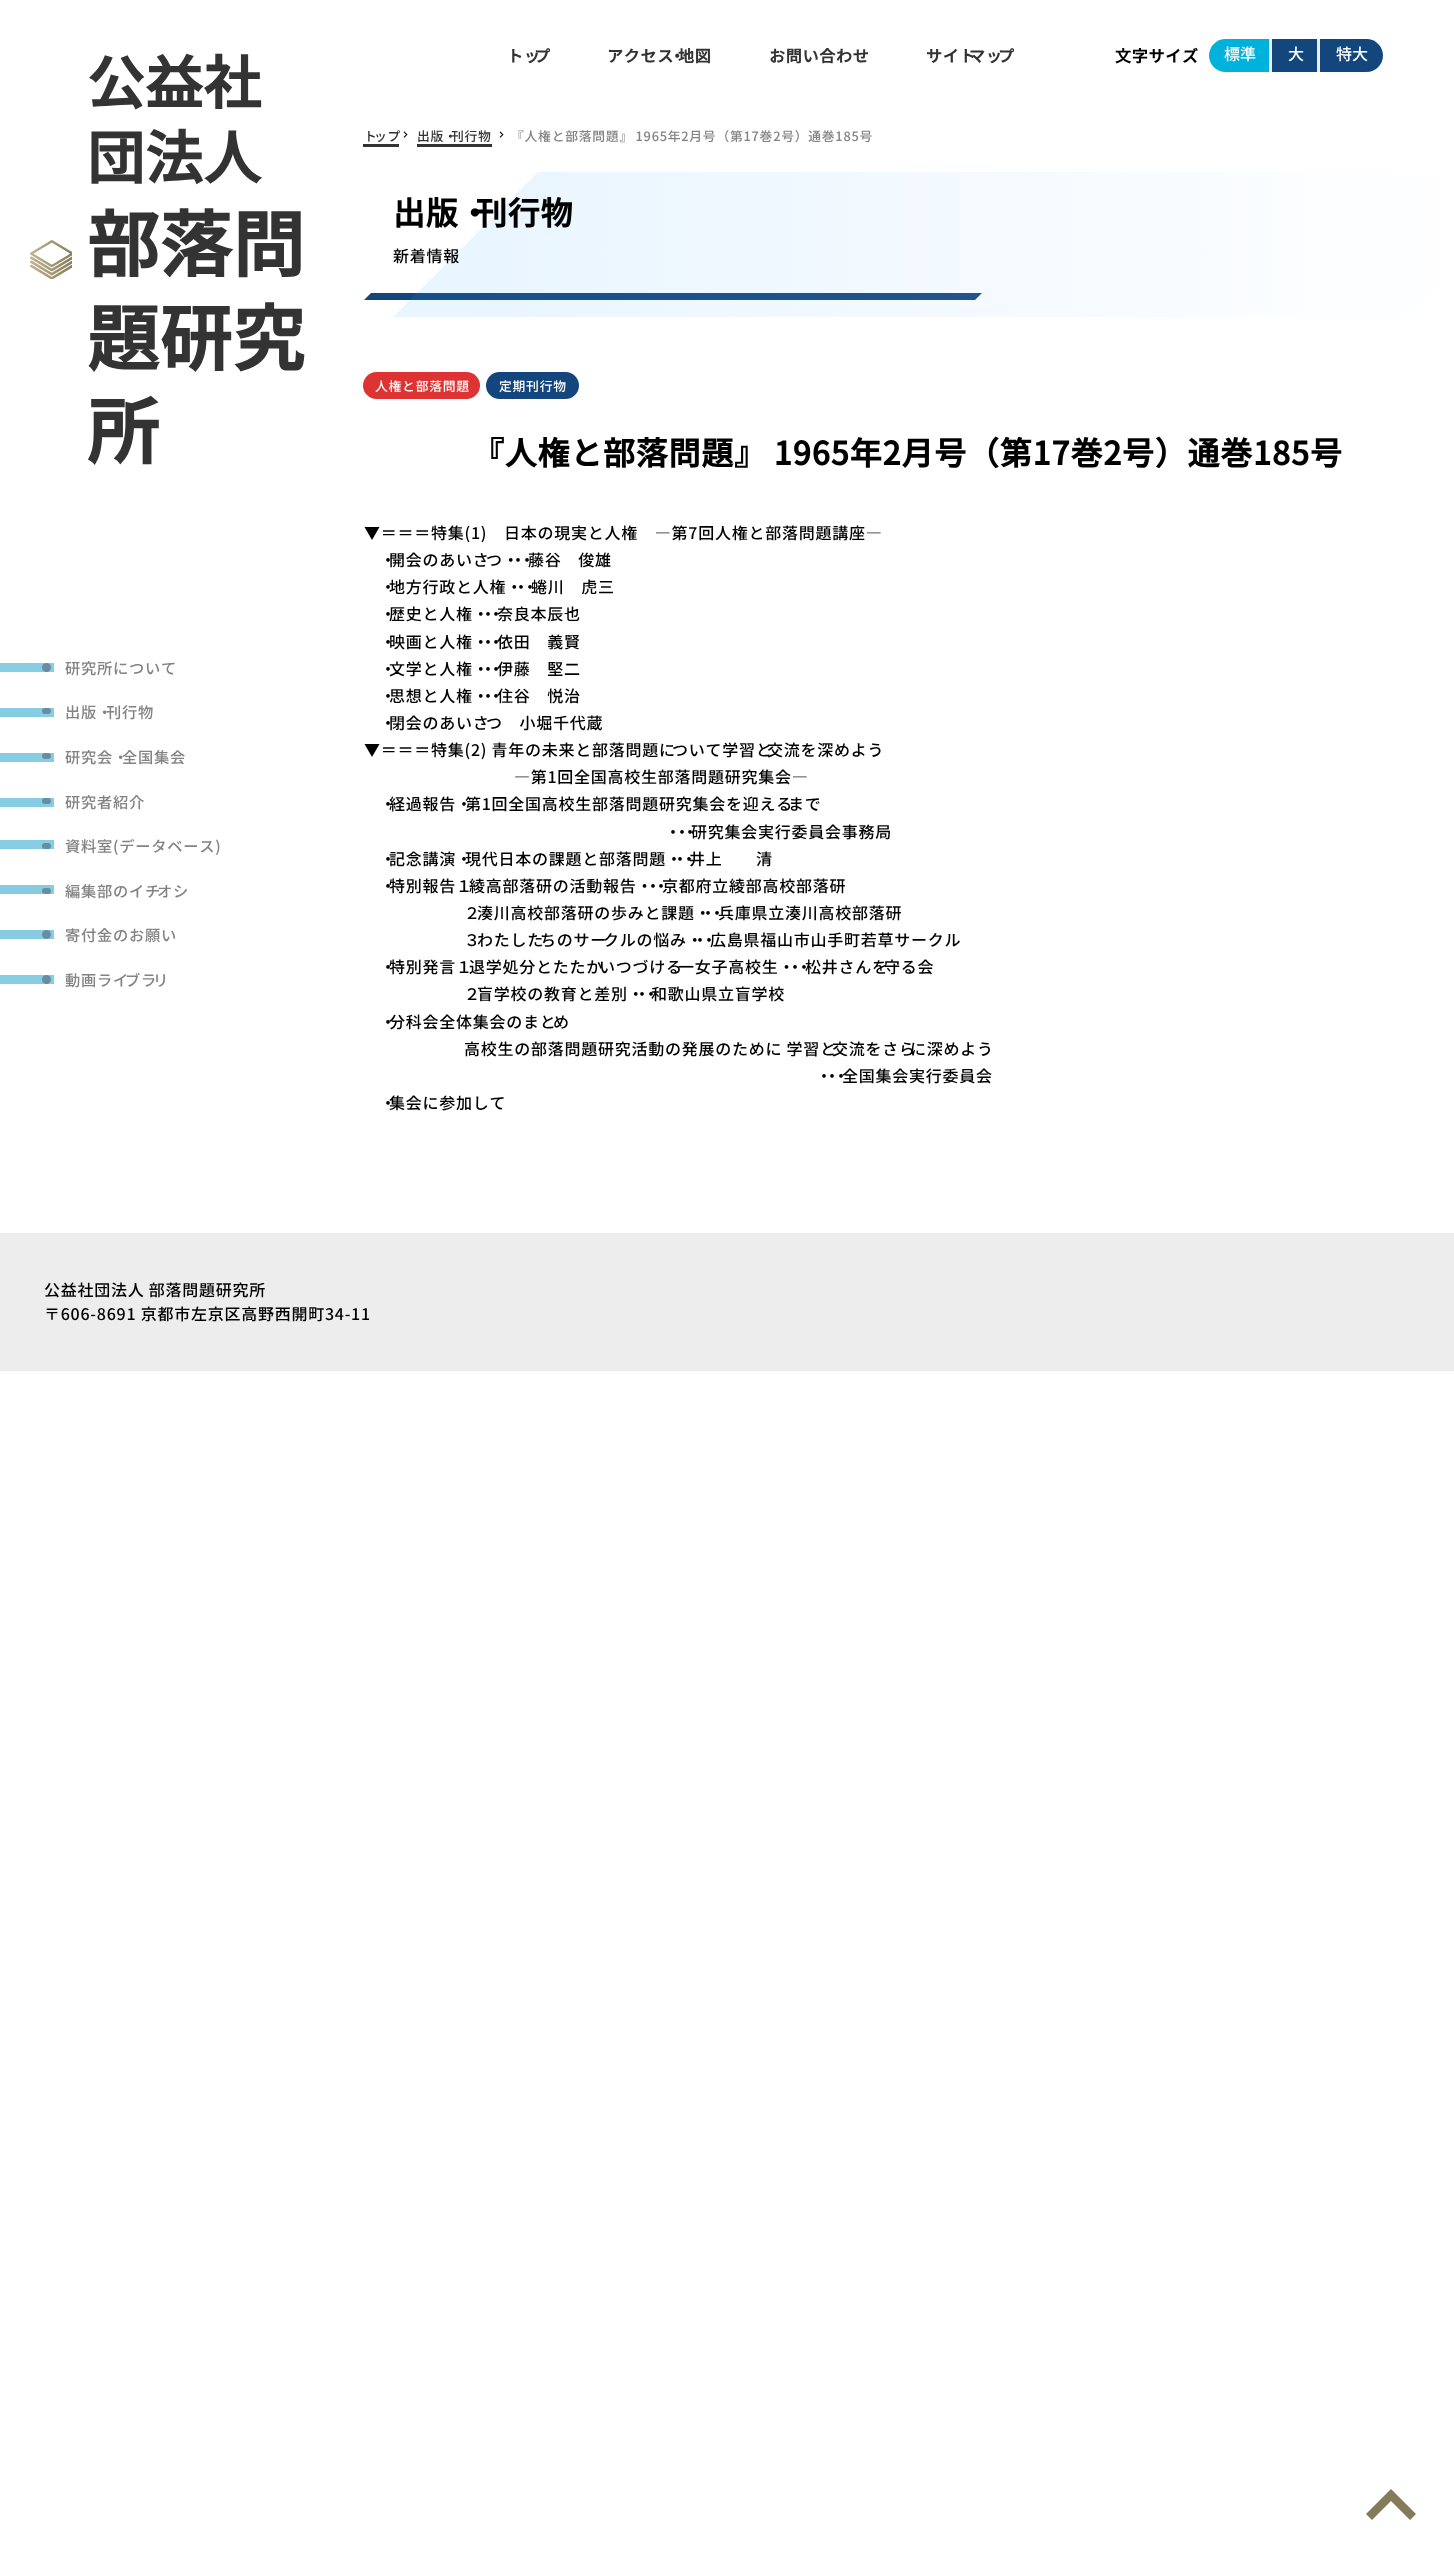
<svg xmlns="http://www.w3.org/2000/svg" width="1454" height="2569">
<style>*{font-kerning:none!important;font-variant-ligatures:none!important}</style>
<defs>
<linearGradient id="g1" gradientUnits="userSpaceOnUse" x1="465" y1="244" x2="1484" y2="244"><stop offset="0" stop-color="#35a5ff" stop-opacity="0.11"/><stop offset="1" stop-color="#fff" stop-opacity="0.1"/></linearGradient>
</defs>
<rect width="100%" height="100%" fill="#fff"/>
<image x="30" y="240" width="42" height="39" href="media/1.png"/>
<text x="87" y="104" style="font-family:Noto Sans JP;font-size:57.5px;font-weight:bold;letter-spacing:0.75px;fill:#333">公益社</text>
<text x="87" y="179" style="font-family:Noto Sans JP;font-size:57.5px;font-weight:bold;letter-spacing:0.75px;fill:#333">団法人</text>
<text x="87" y="271" style="font-family:Noto Sans JP;font-size:72px;font-weight:bold;letter-spacing:0.75px;fill:#333">部落問</text>
<text x="87" y="365" style="font-family:Noto Sans JP;font-size:72px;font-weight:bold;letter-spacing:0.75px;fill:#333">題研究</text>
<text x="87" y="458" style="font-family:Noto Sans JP;font-size:72px;font-weight:bold;letter-spacing:0.75px;fill:#333">所</text>
<rect y="663" width="54" height="9" fill="#86cde3"/>
<text x="65" y="674" style="font-family:Noto Sans JP;font-size:15.25px;font-weight:100;letter-spacing:0.75px;fill:#838383">研究所について</text>
<circle cx="46.5" cy="667.5" r="4.5" fill="#668da1"/>
<rect y="708" width="54" height="9" fill="#86cde3"/>
<text x="65" y="718" style="font-family:Noto Sans JP;font-size:15.25px;font-weight:100;letter-spacing:0.75px;fill:#838383">出版・</text>
<text x="106" y="718" style="font-family:Noto Sans JP;font-size:15.25px;font-weight:100;letter-spacing:0.75px;fill:#838383">刊行物</text>
<rect x="42" y="708" width="9" height="6" rx="3" fill="#668da1"/>
<rect y="753" width="54" height="9" fill="#86cde3"/>
<text x="65" y="763" style="font-family:Noto Sans JP;font-size:15.25px;font-weight:100;letter-spacing:0.75px;fill:#838383">研究会・</text>
<text x="122" y="763" style="font-family:Noto Sans JP;font-size:15.25px;font-weight:100;letter-spacing:0.75px;fill:#838383">全国集会</text>
<rect x="42" y="753" width="9" height="6" rx="3" fill="#668da1"/>
<rect y="798" width="54" height="9" fill="#86cde3"/>
<text x="65" y="808" style="font-family:Noto Sans JP;font-size:15.25px;font-weight:100;letter-spacing:0.75px;fill:#838383">研究者紹介</text>
<rect x="42" y="798" width="9" height="6" rx="3" fill="#668da1"/>
<rect y="840" width="54" height="9" fill="#86cde3"/>
<text x="65" y="852" style="font-family:Noto Sans JP;font-size:15.25px;font-weight:100;letter-spacing:0.75px;fill:#838383">資料室(データベース)</text>
<rect x="42" y="843" width="9" height="6" rx="3" fill="#668da1"/>
<rect y="885" width="54" height="9" fill="#86cde3"/>
<text x="65" y="897" style="font-family:Noto Sans JP;font-size:15.25px;font-weight:100;letter-spacing:0.75px;fill:#838383">編集部のイチ</text>
<text x="157" y="897" style="font-family:Noto Sans JP;font-size:15.25px;font-weight:100;letter-spacing:0.75px;fill:#838383">オシ</text>
<rect x="42" y="888" width="9" height="6" rx="3" fill="#668da1"/>
<rect y="930" width="54" height="9" fill="#86cde3"/>
<text x="65" y="941" style="font-family:Noto Sans JP;font-size:15.25px;font-weight:100;letter-spacing:0.75px;fill:#838383">寄付金のお願い</text>
<circle cx="46.5" cy="934.5" r="4.5" fill="#668da1"/>
<rect y="975" width="54" height="9" fill="#86cde3"/>
<text x="65" y="986" style="font-family:Noto Sans JP;font-size:15.25px;font-weight:100;letter-spacing:0.75px;fill:#838383">動画ライ</text>
<text x="125" y="986" style="font-family:Noto Sans JP;font-size:15.25px;font-weight:100;letter-spacing:0.75px;fill:#838383">ブラ</text>
<text x="153" y="986" style="font-family:Noto Sans JP;font-size:15.25px;font-weight:100;letter-spacing:0.75px;fill:#838383">リ</text>
<circle cx="46.5" cy="979.5" r="4.5" fill="#668da1"/>
<text x="507" y="62" style="font-family:Noto Sans JP;font-size:16px;font-weight:bold;letter-spacing:0.75px;fill:#333">トッ</text>
<text x="534" y="62" style="font-family:Noto Sans JP;font-size:16px;font-weight:bold;letter-spacing:0.75px;fill:#333">プ</text>
<text x="607" y="62" style="font-family:Noto Sans JP;font-size:16px;font-weight:bold;letter-spacing:0.75px;fill:#333">アクセス</text>
<text x="669" y="62" style="font-family:Noto Sans JP;font-size:16px;font-weight:bold;letter-spacing:0.75px;fill:#333">・</text>
<text x="678" y="62" style="font-family:Noto Sans JP;font-size:16px;font-weight:bold;letter-spacing:0.75px;fill:#333">地図</text>
<text x="769" y="62" style="font-family:Noto Sans JP;font-size:16px;font-weight:bold;letter-spacing:0.75px;fill:#333">お問い合わせ</text>
<text x="926" y="62" style="font-family:Noto Sans JP;font-size:16px;font-weight:bold;letter-spacing:0.75px;fill:#333">サイト</text>
<text x="969" y="62" style="font-family:Noto Sans JP;font-size:16px;font-weight:bold;letter-spacing:0.75px;fill:#333">マッ</text>
<text x="998" y="62" style="font-family:Noto Sans JP;font-size:16px;font-weight:bold;letter-spacing:0.75px;fill:#333">プ</text>
<text x="1115" y="62" style="font-family:Noto Sans JP;font-size:16px;font-weight:bold;letter-spacing:0.75px;fill:#000">文字サイズ</text>
<path d="M1225.5 39h43.5v33h-43.5c-9 0-16.5-7.5-16.5-16.5c0-9 7.5-16.5 16.5-16.5z" fill="#00b2db"/>
<text x="1224" y="60" style="font-family:Noto Sans JP;font-size:16px;font-weight:100;fill:#fff">標準</text>
<rect x="1272" y="39" width="45" height="33" fill="#13467d"/>
<rect x="1317" y="39" width="3" height="33" fill="#efeeeb"/>
<rect x="1269" y="39" width="3" height="33" fill="#efeeeb"/>
<text x="1288" y="60" style="font-family:Noto Sans JP;font-size:16px;font-weight:100;fill:#fff">大</text>
<path d="M1320 39h46.5c9 0 16.5 7.5 16.5 16.5c0 9-7.5 16.5-16.5 16.5h-46.5z" fill="#13467d"/>
<text x="1336" y="60" style="font-family:Noto Sans JP;font-size:16px;font-weight:100;fill:#fff">特大</text>
<text x="364" y="141" style="font-family:Noto Sans JP;font-size:12.8px;font-weight:100;letter-spacing:0.75px;fill:#333">ト</text>
<text x="374" y="141" style="font-family:Noto Sans JP;font-size:12.8px;font-weight:100;letter-spacing:0.75px;fill:#333">ップ</text>
<rect x="363" y="144" width="36" height="3" fill="#333"/>
<image x="403" y="131" width="5" height="7" href="media/2.png"/>
<text x="417" y="141" style="font-family:Noto Sans JP;font-size:12.8px;font-weight:100;letter-spacing:0.75px;fill:#333">出版・</text>
<text x="451" y="141" style="font-family:Noto Sans JP;font-size:12.8px;font-weight:100;letter-spacing:0.75px;fill:#333">刊行物</text>
<rect x="417" y="144" width="75" height="3" fill="#333"/>
<image x="499" y="131" width="5" height="7" href="media/2.png"/>
<text x="511" y="141" word-spacing="-1" style="font-family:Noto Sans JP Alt;font-size:12.8px;font-weight:100;letter-spacing:0.75px;fill:#838383">『人権と部落問題』 1965年2月号（第17巻2号）通巻185号</text>
<path d="M371 293h611l-7 7h-611z" fill="#13467d"/>
<path d="M538 172h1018l-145 145h-1018z" fill="url(#g1)"/>
<text x="393" y="225" style="font-family:Noto Sans JP;font-size:32px;font-weight:bold;letter-spacing:0.75px;fill:#000">出版・</text>
<text x="475" y="225" style="font-family:Noto Sans JP;font-size:32px;font-weight:bold;letter-spacing:0.75px;fill:#000">刊行物</text>
<text x="393" y="262" style="font-family:Noto Sans JP;font-size:16px;font-weight:100;letter-spacing:0.75px;fill:#000">新着情報</text>
<rect x="363" y="372" width="117" height="27" rx="13.5" fill="#d33"/>
<text x="375" y="391" style="font-family:Noto Sans JP;font-size:12.8px;font-weight:100;letter-spacing:0.75px;fill:#fff">人権と部落問題</text>
<rect x="486" y="372" width="93" height="27" rx="13.5" fill="#13467d"/>
<text x="499" y="391" style="font-family:Noto Sans JP;font-size:12.8px;font-weight:100;letter-spacing:0.75px;fill:#fff">定期刊行物</text>
<text x="472" y="465" word-spacing="-1" style="font-family:Noto Sans JP Alt;font-size:32px;font-weight:bold;letter-spacing:0.75px;fill:#000">『人権と部落問題』 1965年2月号（第17巻2号）通巻185号</text>
<text x="364" y="539" style="font-family:Noto Sans JP Alt;font-size:16px;font-weight:100;letter-spacing:0.75px;fill:#000">▼＝＝＝特集(1)　日本の現実と人権　―第7回人権と部落問題講座―</text>
<text x="380" y="566" style="font-family:Noto Sans JP;font-size:16px;font-weight:100;letter-spacing:0.75px;fill:#000">・</text>
<text x="389" y="566" style="font-family:Noto Sans JP;font-size:16px;font-weight:100;letter-spacing:0.75px;fill:#000">開会のあいさ</text>
<text x="486" y="566" style="font-family:Noto Sans JP;font-size:16px;font-weight:100;letter-spacing:0.75px;fill:#000">つ・</text>
<text x="510" y="566" style="font-family:Noto Sans JP;font-size:16px;font-weight:100;letter-spacing:0.75px;fill:#000">・</text>
<text x="519" y="566" style="font-family:Noto Sans JP;font-size:16px;font-weight:100;letter-spacing:0.75px;fill:#000">・</text>
<text x="528" y="566" style="font-family:Noto Sans JP;font-size:16px;font-weight:100;letter-spacing:0.75px;fill:#000">藤谷　俊雄</text>
<text x="380" y="593" style="font-family:Noto Sans JP;font-size:16px;font-weight:100;letter-spacing:0.75px;fill:#000">・</text>
<text x="389" y="593" style="font-family:Noto Sans JP;font-size:16px;font-weight:100;letter-spacing:0.75px;fill:#000">地方行政と人権・</text>
<text x="513" y="593" style="font-family:Noto Sans JP;font-size:16px;font-weight:100;letter-spacing:0.75px;fill:#000">・</text>
<text x="522" y="593" style="font-family:Noto Sans JP;font-size:16px;font-weight:100;letter-spacing:0.75px;fill:#000">・</text>
<text x="531" y="593" style="font-family:Noto Sans JP;font-size:16px;font-weight:100;letter-spacing:0.75px;fill:#000">蜷川　虎三</text>
<text x="380" y="620" style="font-family:Noto Sans JP;font-size:16px;font-weight:100;letter-spacing:0.75px;fill:#000">・</text>
<text x="389" y="620" style="font-family:Noto Sans JP;font-size:16px;font-weight:100;letter-spacing:0.75px;fill:#000">歴史と人権・</text>
<text x="480" y="620" style="font-family:Noto Sans JP;font-size:16px;font-weight:100;letter-spacing:0.75px;fill:#000">・</text>
<text x="488" y="620" style="font-family:Noto Sans JP;font-size:16px;font-weight:100;letter-spacing:0.75px;fill:#000">・</text>
<text x="497" y="620" style="font-family:Noto Sans JP;font-size:16px;font-weight:100;letter-spacing:0.75px;fill:#000">奈良本辰也</text>
<text x="380" y="648" style="font-family:Noto Sans JP;font-size:16px;font-weight:100;letter-spacing:0.75px;fill:#000">・</text>
<text x="389" y="648" style="font-family:Noto Sans JP;font-size:16px;font-weight:100;letter-spacing:0.75px;fill:#000">映画と人権・</text>
<text x="480" y="648" style="font-family:Noto Sans JP;font-size:16px;font-weight:100;letter-spacing:0.75px;fill:#000">・</text>
<text x="488" y="648" style="font-family:Noto Sans JP;font-size:16px;font-weight:100;letter-spacing:0.75px;fill:#000">・</text>
<text x="497" y="648" style="font-family:Noto Sans JP;font-size:16px;font-weight:100;letter-spacing:0.75px;fill:#000">依田　義賢</text>
<text x="380" y="675" style="font-family:Noto Sans JP;font-size:16px;font-weight:100;letter-spacing:0.75px;fill:#000">・</text>
<text x="389" y="675" style="font-family:Noto Sans JP;font-size:16px;font-weight:100;letter-spacing:0.75px;fill:#000">文学と人権・</text>
<text x="480" y="675" style="font-family:Noto Sans JP;font-size:16px;font-weight:100;letter-spacing:0.75px;fill:#000">・</text>
<text x="488" y="675" style="font-family:Noto Sans JP;font-size:16px;font-weight:100;letter-spacing:0.75px;fill:#000">・</text>
<text x="497" y="675" style="font-family:Noto Sans JP;font-size:16px;font-weight:100;letter-spacing:0.75px;fill:#000">伊藤　堅二</text>
<text x="380" y="702" style="font-family:Noto Sans JP;font-size:16px;font-weight:100;letter-spacing:0.75px;fill:#000">・</text>
<text x="389" y="702" style="font-family:Noto Sans JP;font-size:16px;font-weight:100;letter-spacing:0.75px;fill:#000">思想と人権・</text>
<text x="480" y="702" style="font-family:Noto Sans JP;font-size:16px;font-weight:100;letter-spacing:0.75px;fill:#000">・</text>
<text x="488" y="702" style="font-family:Noto Sans JP;font-size:16px;font-weight:100;letter-spacing:0.75px;fill:#000">・</text>
<text x="497" y="702" style="font-family:Noto Sans JP;font-size:16px;font-weight:100;letter-spacing:0.75px;fill:#000">住谷　悦治</text>
<text x="380" y="729" style="font-family:Noto Sans JP;font-size:16px;font-weight:100;letter-spacing:0.75px;fill:#000">・</text>
<text x="389" y="729" style="font-family:Noto Sans JP;font-size:16px;font-weight:100;letter-spacing:0.75px;fill:#000">閉会のあいさ</text>
<text x="486" y="729" style="font-family:Noto Sans JP;font-size:16px;font-weight:100;letter-spacing:0.75px;fill:#000">つ　小堀千代蔵</text>
<text x="364" y="756" style="font-family:Noto Sans JP;font-size:16px;font-weight:100;letter-spacing:0.75px;fill:#000">▼＝＝＝特集(2) 青年の未来と部落問題に</text>
<text x="672" y="756" style="font-family:Noto Sans JP;font-size:16px;font-weight:100;letter-spacing:0.75px;fill:#000">ついて学習と</text>
<text x="767" y="756" style="font-family:Noto Sans JP;font-size:16px;font-weight:100;letter-spacing:0.75px;fill:#000">交流を深めよう</text>
<text x="514" y="783" style="font-family:Noto Sans JP;font-size:16px;font-weight:100;letter-spacing:0.75px;fill:#000">―第1回全国高校生部落問題研究集会―</text>
<text x="380" y="810" style="font-family:Noto Sans JP;font-size:16px;font-weight:100;letter-spacing:0.75px;fill:#000">・</text>
<text x="389" y="810" style="font-family:Noto Sans JP;font-size:16px;font-weight:100;letter-spacing:0.75px;fill:#000">経過報告・</text>
<text x="465" y="810" style="font-family:Noto Sans JP;font-size:16px;font-weight:100;letter-spacing:0.75px;fill:#000">第1回全国高校生部落問題研究集会を迎える</text>
<text x="788" y="810" style="font-family:Noto Sans JP;font-size:16px;font-weight:100;letter-spacing:0.75px;fill:#000">まで</text>
<text x="665" y="838" style="font-family:Noto Sans JP;font-size:16px;font-weight:100;letter-spacing:0.75px;fill:#000">・</text>
<text x="674" y="838" style="font-family:Noto Sans JP;font-size:16px;font-weight:100;letter-spacing:0.75px;fill:#000">・</text>
<text x="682" y="838" style="font-family:Noto Sans JP;font-size:16px;font-weight:100;letter-spacing:0.75px;fill:#000">・</text>
<text x="691" y="838" style="font-family:Noto Sans JP;font-size:16px;font-weight:100;letter-spacing:0.75px;fill:#000">研究集会実行委員会事務局</text>
<text x="380" y="865" style="font-family:Noto Sans JP;font-size:16px;font-weight:100;letter-spacing:0.75px;fill:#000">・</text>
<text x="389" y="865" style="font-family:Noto Sans JP;font-size:16px;font-weight:100;letter-spacing:0.75px;fill:#000">記念講演・</text>
<text x="465" y="865" style="font-family:Noto Sans JP;font-size:16px;font-weight:100;letter-spacing:0.75px;fill:#000">現代日本の課題と部落問題・</text>
<text x="672" y="865" style="font-family:Noto Sans JP;font-size:16px;font-weight:100;letter-spacing:0.75px;fill:#000">・</text>
<text x="681" y="865" style="font-family:Noto Sans JP;font-size:16px;font-weight:100;letter-spacing:0.75px;fill:#000">・</text>
<text x="689" y="865" style="font-family:Noto Sans JP;font-size:16px;font-weight:100;letter-spacing:0.75px;fill:#000">井上　　清</text>
<text x="380" y="892" style="font-family:Noto Sans JP;font-size:16px;font-weight:100;letter-spacing:0.75px;fill:#000">・</text>
<text x="389" y="892" style="font-family:Noto Sans JP;font-size:16px;font-weight:100;letter-spacing:0.75px;fill:#000">特別報告１</text>
<text x="469" y="892" style="font-family:Noto Sans JP;font-size:16px;font-weight:100;letter-spacing:0.75px;fill:#000">綾高部落研の活動報告・</text>
<text x="645" y="892" style="font-family:Noto Sans JP;font-size:16px;font-weight:100;letter-spacing:0.75px;fill:#000">・</text>
<text x="653" y="892" style="font-family:Noto Sans JP;font-size:16px;font-weight:100;letter-spacing:0.75px;fill:#000">・</text>
<text x="662" y="892" style="font-family:Noto Sans JP;font-size:16px;font-weight:100;letter-spacing:0.75px;fill:#000">京都府立綾部高校部落研</text>
<text x="464" y="919" style="font-family:Noto Sans JP;font-size:16px;font-weight:100;letter-spacing:0.75px;fill:#000">２</text>
<text x="477" y="919" style="font-family:Noto Sans JP;font-size:16px;font-weight:100;letter-spacing:0.75px;fill:#000">湊川高校部落研の歩みと課題・</text>
<text x="700" y="919" style="font-family:Noto Sans JP;font-size:16px;font-weight:100;letter-spacing:0.75px;fill:#000">・</text>
<text x="709" y="919" style="font-family:Noto Sans JP;font-size:16px;font-weight:100;letter-spacing:0.75px;fill:#000">・</text>
<text x="718" y="919" style="font-family:Noto Sans JP;font-size:16px;font-weight:100;letter-spacing:0.75px;fill:#000">兵庫県立湊川高校部落研</text>
<text x="464" y="946" style="font-family:Noto Sans JP;font-size:16px;font-weight:100;letter-spacing:0.75px;fill:#000">３</text>
<text x="477" y="946" style="font-family:Noto Sans JP;font-size:16px;font-weight:100;letter-spacing:0.75px;fill:#000">わたした</text>
<text x="540" y="946" style="font-family:Noto Sans JP;font-size:16px;font-weight:100;letter-spacing:0.75px;fill:#000">ちのサー</text>
<text x="603" y="946" style="font-family:Noto Sans JP;font-size:16px;font-weight:100;letter-spacing:0.75px;fill:#000">クルの悩み・</text>
<text x="692" y="946" style="font-family:Noto Sans JP;font-size:16px;font-weight:100;letter-spacing:0.75px;fill:#000">・</text>
<text x="701" y="946" style="font-family:Noto Sans JP;font-size:16px;font-weight:100;letter-spacing:0.75px;fill:#000">・</text>
<text x="710" y="946" style="font-family:Noto Sans JP;font-size:16px;font-weight:100;letter-spacing:0.75px;fill:#000">広島県福山市山手町若草サークル</text>
<text x="380" y="973" style="font-family:Noto Sans JP;font-size:16px;font-weight:100;letter-spacing:0.75px;fill:#000">・</text>
<text x="389" y="973" style="font-family:Noto Sans JP;font-size:16px;font-weight:100;letter-spacing:0.75px;fill:#000">特別発言１</text>
<text x="469" y="973" style="font-family:Noto Sans JP;font-size:16px;font-weight:100;letter-spacing:0.75px;fill:#000">退学処分とたたか</text>
<text x="599" y="973" style="font-family:Noto Sans JP;font-size:16px;font-weight:100;letter-spacing:0.75px;fill:#000">いつづける</text>
<text x="678" y="973" style="font-family:Noto Sans JP;font-size:16px;font-weight:100;letter-spacing:0.75px;fill:#000">一女子高校生・</text>
<text x="787" y="973" style="font-family:Noto Sans JP;font-size:16px;font-weight:100;letter-spacing:0.75px;fill:#000">・</text>
<text x="796" y="973" style="font-family:Noto Sans JP;font-size:16px;font-weight:100;letter-spacing:0.75px;fill:#000">・</text>
<text x="805" y="973" style="font-family:Noto Sans JP;font-size:16px;font-weight:100;letter-spacing:0.75px;fill:#000">松井さんを</text>
<text x="884" y="973" style="font-family:Noto Sans JP;font-size:16px;font-weight:100;letter-spacing:0.75px;fill:#000">守る会</text>
<text x="464" y="1000" style="font-family:Noto Sans JP;font-size:16px;font-weight:100;letter-spacing:0.75px;fill:#000">２</text>
<text x="477" y="1000" style="font-family:Noto Sans JP;font-size:16px;font-weight:100;letter-spacing:0.75px;fill:#000">盲学校の教育と差別・</text>
<text x="634" y="1000" style="font-family:Noto Sans JP;font-size:16px;font-weight:100;letter-spacing:0.75px;fill:#000">・</text>
<text x="643" y="1000" style="font-family:Noto Sans JP;font-size:16px;font-weight:100;letter-spacing:0.75px;fill:#000">・</text>
<text x="651" y="1000" style="font-family:Noto Sans JP;font-size:16px;font-weight:100;letter-spacing:0.75px;fill:#000">和歌山県立盲学校</text>
<text x="380" y="1028" style="font-family:Noto Sans JP;font-size:16px;font-weight:100;letter-spacing:0.75px;fill:#000">・</text>
<text x="389" y="1028" style="font-family:Noto Sans JP;font-size:16px;font-weight:100;letter-spacing:0.75px;fill:#000">分科会全体集会のまと</text>
<text x="553" y="1028" style="font-family:Noto Sans JP;font-size:16px;font-weight:100;letter-spacing:0.75px;fill:#000">め</text>
<text x="464" y="1055" style="font-family:Noto Sans JP;font-size:16px;font-weight:100;letter-spacing:0.75px;fill:#000">高校生の部落問題研究活動の発展のために 学習と</text>
<text x="832" y="1055" style="font-family:Noto Sans JP;font-size:16px;font-weight:100;letter-spacing:0.75px;fill:#000">交流をさら</text>
<text x="910" y="1055" style="font-family:Noto Sans JP;font-size:16px;font-weight:100;letter-spacing:0.75px;fill:#000">に深めよう</text>
<text x="816" y="1082" style="font-family:Noto Sans JP;font-size:16px;font-weight:100;letter-spacing:0.75px;fill:#000">・</text>
<text x="824" y="1082" style="font-family:Noto Sans JP;font-size:16px;font-weight:100;letter-spacing:0.75px;fill:#000">・</text>
<text x="833" y="1082" style="font-family:Noto Sans JP;font-size:16px;font-weight:100;letter-spacing:0.75px;fill:#000">・</text>
<text x="842" y="1082" style="font-family:Noto Sans JP;font-size:16px;font-weight:100;letter-spacing:0.75px;fill:#000">全国集会実行委員会</text>
<text x="380" y="1109" style="font-family:Noto Sans JP;font-size:16px;font-weight:100;letter-spacing:0.75px;fill:#000">・</text>
<text x="389" y="1109" style="font-family:Noto Sans JP;font-size:16px;font-weight:100;letter-spacing:0.75px;fill:#000">集会に参加して</text>
<rect y="1233" width="1454" height="138" fill="#ededed"/>
<text x="44" y="1296" style="font-family:Noto Sans JP;font-size:16px;font-weight:100;letter-spacing:0.75px;fill:#000">公益社団法人 部落問題研究所</text>
<text x="44" y="1320" style="font-family:Noto Sans JP Alt;font-size:16px;font-weight:100;letter-spacing:0.75px;fill:#000">〒606-8691 京都市左京区高野西開町34-11</text>
<path d="M1391 2489l25 25l-6 6l-19-19l-19 19l-6-6z" fill="#837b5a"/>
</svg>
